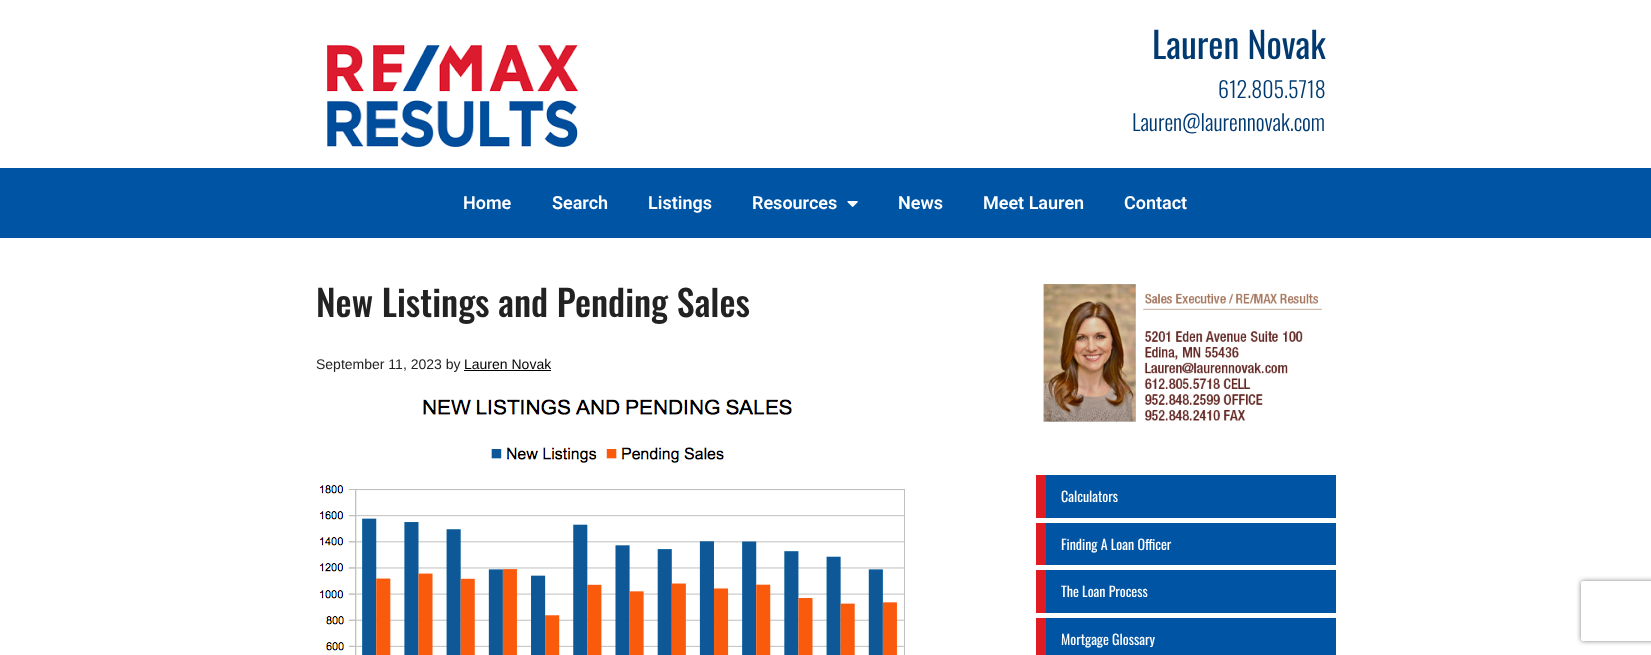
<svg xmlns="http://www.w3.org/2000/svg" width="1651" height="655">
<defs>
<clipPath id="clip1"><path d="M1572 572h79v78h-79zm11 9h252c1 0 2 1 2 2v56c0 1-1 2-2 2h-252c-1 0-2-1-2-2v-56c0-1 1-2 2-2z" clip-rule="evenodd"/></clipPath>
</defs>
<rect width="100%" height="100%" fill="#fff"/>
<image x="327" y="45" width="251" height="102" href="media/1.png"/>
<text x="1152" y="59" style="font-family:Oswald;font-size:36px;fill:#003a71">Lauren Novak</text>
<text x="1218" y="98" style="font-family:Oswald;font-size:22px;font-weight:300;fill:#003a71">612.805.5718</text>
<text x="1132" y="131" style="font-family:Oswald;font-size:22px;font-weight:300;fill:#003a71">Lauren@laurennovak.com</text>
<rect y="168" width="1651" height="70" fill="#0054a4"/>
<text x="463" y="209" style="font-family:Roboto;font-size:18px;font-weight:600;fill:#fff">Home</text>
<text x="552" y="209" style="font-family:Roboto;font-size:18px;font-weight:600;fill:#fff">Search</text>
<text x="648" y="209" style="font-family:Roboto;font-size:18px;font-weight:600;fill:#fff">Listings</text>
<text x="752" y="209" style="font-family:Roboto;font-size:18px;font-weight:600;fill:#fff">Resources</text>
<image x="847" y="201" width="11" height="6" href="media/2.png"/>
<text x="898" y="209" style="font-family:Roboto;font-size:18px;font-weight:600;fill:#fff">News</text>
<text x="983" y="209" style="font-family:Roboto;font-size:18px;font-weight:600;fill:#fff">Meet Lauren</text>
<text x="1124" y="209" style="font-family:Roboto;font-size:18px;font-weight:600;fill:#fff">Contact</text>
<text x="316" y="317" style="font-family:Oswald;font-size:36px;font-weight:500;fill:#222">New Listings and Pending Sales</text>
<text x="316" y="369" style="font-family:Liberation Sans;font-size:14px;fill:#222">September 11, 2023 by</text>
<text x="464" y="369" style="font-family:Liberation Sans;font-size:14px;fill:#000">Lauren Novak</text>
<rect x="464" y="370" width="87" height="1" fill="#000"/>
<image x="319" y="399" width="586" height="256" href="media/3.png"/>
<image x="1043" y="284" width="279" height="138" href="media/4.png"/>
<rect x="1046" y="475" width="290" height="43" fill="#0054a4"/>
<rect x="1036" y="475" width="10" height="43" fill="#e11b22"/>
<text x="1061" y="502" style="font-family:Oswald;font-size:14px;fill:#fff">Calculators</text>
<rect x="1046" y="523" width="290" height="42" fill="#0054a4"/>
<rect x="1036" y="523" width="10" height="42" fill="#e11b22"/>
<text x="1061" y="550" style="font-family:Oswald;font-size:14px;fill:#fff">Finding A Loan Officer</text>
<rect x="1046" y="570" width="290" height="43" fill="#0054a4"/>
<rect x="1036" y="570" width="10" height="43" fill="#e11b22"/>
<text x="1061" y="597" style="font-family:Oswald;font-size:14px;fill:#fff">The Loan Process</text>
<rect x="1046" y="618" width="290" height="37" fill="#0054a4"/>
<rect x="1036" y="618" width="10" height="37" fill="#e11b22"/>
<text x="1061" y="645" style="font-family:Oswald;font-size:14px;fill:#fff">Mortgage Glossary</text>
<g clip-path="url(#clip1)">
<rect x="1581" y="581" width="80" height="60" rx="2" fill="#808080" filter="blur(2.5px)"/>
</g>
</svg>
